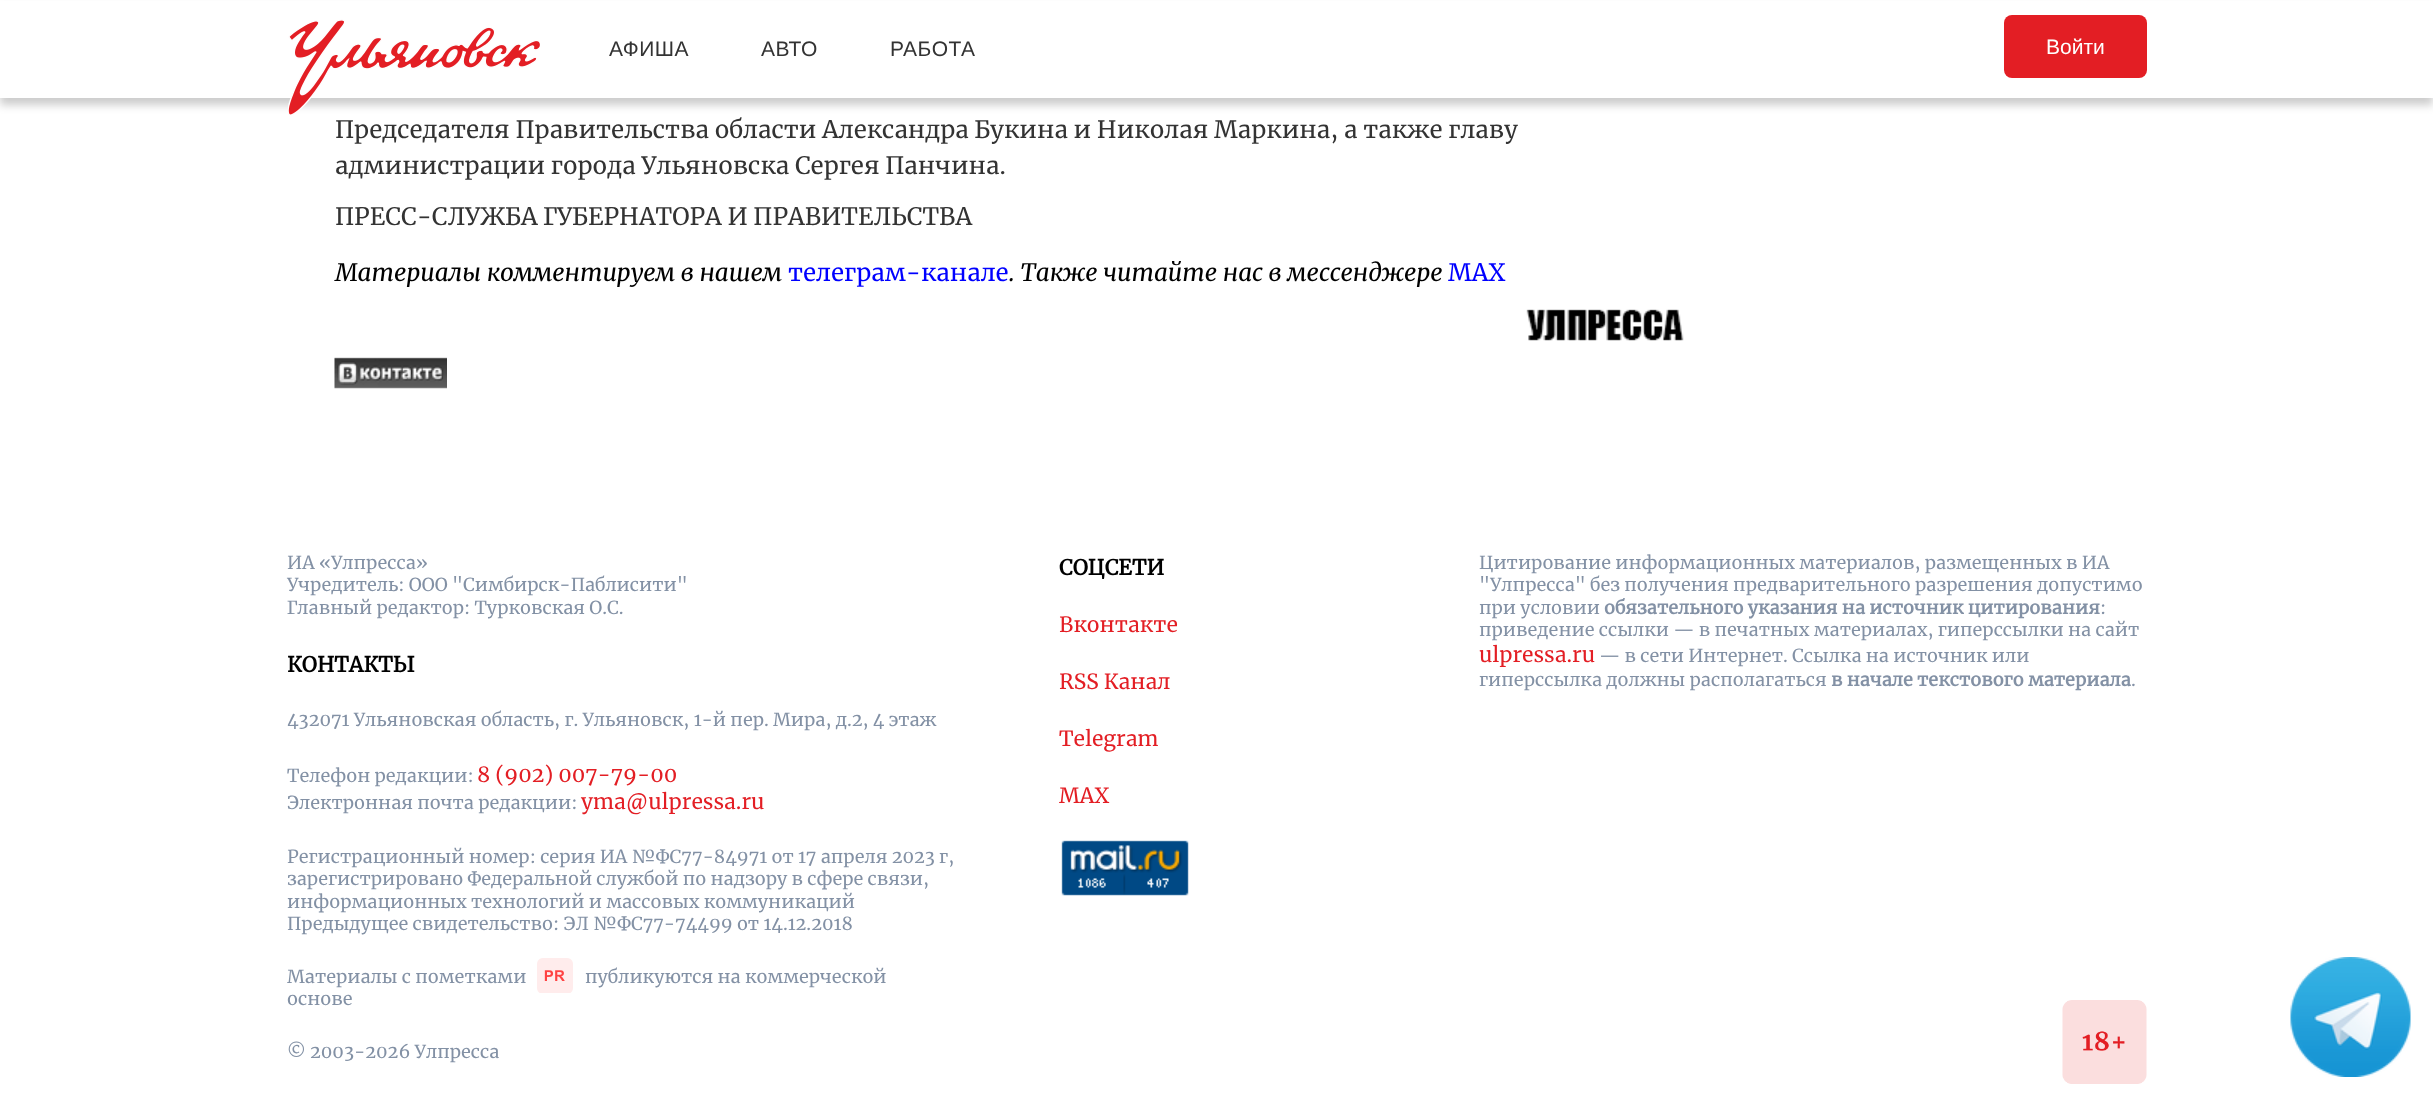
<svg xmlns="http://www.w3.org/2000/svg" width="2433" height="1104">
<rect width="100%" height="100%" fill="#fff"/>
<rect y="8" width="2433" height="97" fill="#00000033" filter="blur(4px)"/>
<rect y="1" width="2433" height="97" fill="#fff"/>
<image x="288" y="19" width="252" height="96" href="media/1.png"/>
<text x="609" y="56" style="font-family:Liberation Sans;font-size:21px;letter-spacing:0.5px;fill:#333">АФИША</text>
<text x="761" y="56" style="font-family:Liberation Sans;font-size:21px;letter-spacing:0.5px;fill:#333">АВТО</text>
<text x="890" y="56" style="font-family:Liberation Sans;font-size:21px;letter-spacing:0.5px;fill:#333">РАБОТА</text>
<rect x="2004" y="15" width="143" height="63" rx="8" fill="#e31e24"/>
<text x="2046" y="54" style="font-family:Liberation Sans;font-size:21px;fill:#fff">Войти</text>
<text x="335" y="138" style="font-family:Merriweather;font-size:24px;fill:#333">Председателя Правительства области Александра Букина и Николая Маркина, а также главу</text>
<text x="335" y="174" style="font-family:Merriweather;font-size:24px;fill:#333">администрации города Ульяновска Сергея Панчина.</text>
<text x="335" y="225" style="font-family:Merriweather;font-size:24px;fill:#333">ПРЕСС-СЛУЖБА ГУБЕРНАТОРА И ПРАВИТЕЛЬСТВА</text>
<text x="335" y="281" style="font-family:Merriweather;font-size:24px;font-style:italic;fill:#000">Материалы комментируем в нашем</text>
<text x="788" y="281" style="font-family:Merriweather;font-size:24px;fill:#00f">телеграм-канале</text>
<text x="1009" y="281" style="font-family:Merriweather;font-size:24px;font-style:italic;fill:#000">. Также читайте нас в мессенджере</text>
<text x="1448" y="281" style="font-family:Merriweather;font-size:24px;fill:#00f">MAX</text>
<image x="1526" y="309" width="158" height="32" href="media/2.png"/>
<image x="334" y="357" width="113" height="32" href="media/3.png"/>
<text x="287" y="569" style="font-family:Merriweather;font-size:18px;fill:#8391a5">ИА «Улпресса»</text>
<text x="287" y="591" style="font-family:Merriweather;font-size:18px;fill:#8391a5">Учредитель: ООО "Симбирск-Паблисити"</text>
<text x="287" y="614" style="font-family:Merriweather;font-size:18px;fill:#8391a5">Главный редактор: Турковская О.С.</text>
<text x="287" y="672" style="font-family:Merriweather;font-size:21px;font-weight:bold;fill:#000">КОНТАКТЫ</text>
<text x="287" y="726" style="font-family:Merriweather;font-size:18px;fill:#8391a5">432071 Ульяновская область, г. Ульяновск, 1-й пер. Мира, д.2, 4 этаж</text>
<text x="287" y="782" style="font-family:Merriweather;font-size:18px;fill:#8391a5">Телефон редакции:</text>
<text x="477" y="782" style="font-family:Merriweather;font-size:21px;fill:#e31e24">8 (902) 007-79-00</text>
<text x="287" y="809" style="font-family:Merriweather;font-size:18px;fill:#8391a5">Электронная почта редакции:</text>
<text x="581" y="809" style="font-family:Merriweather;font-size:21px;fill:#e31e24">yma@ulpressa.ru</text>
<text x="287" y="863" style="font-family:Merriweather;font-size:18px;fill:#8391a5">Регистрационный номер: серия ИА №ФС77-84971 от 17 апреля 2023 г,</text>
<text x="287" y="885" style="font-family:Merriweather;font-size:18px;fill:#8391a5">зарегистрировано Федеральной службой по надзору в сфере связи,</text>
<text x="287" y="908" style="font-family:Merriweather;font-size:18px;fill:#8391a5">информационных технологий и массовых коммуникаций</text>
<text x="287" y="930" style="font-family:Merriweather;font-size:18px;fill:#8391a5">Предыдущее свидетельство: ЭЛ №ФС77-74499 от 14.12.2018</text>
<text x="287" y="983" style="font-family:Merriweather;font-size:18px;fill:#8391a5">Материалы с пометками</text>
<image x="537" y="958" width="36" height="35" href="media/4.png"/>
<text x="585" y="983" style="font-family:Merriweather;font-size:18px;fill:#8391a5">публикуются на коммерческой</text>
<text x="287" y="1005" style="font-family:Merriweather;font-size:18px;fill:#8391a5">основе</text>
<text x="287" y="1058" style="font-family:Merriweather;font-size:18px;fill:#8391a5">© 2003-2026 Улпресса</text>
<image x="2062" y="1000" width="85" height="84" href="media/5.png"/>
<text x="1059" y="575" style="font-family:Merriweather;font-size:21px;font-weight:bold;fill:#000">СОЦСЕТИ</text>
<text x="1059" y="632" style="font-family:Merriweather;font-size:21px;fill:#e31e24">Вконтакте</text>
<text x="1059" y="689" style="font-family:Merriweather;font-size:21px;fill:#e31e24">RSS Канал</text>
<text x="1059" y="746" style="font-family:Merriweather;font-size:21px;fill:#e31e24">Telegram</text>
<text x="1059" y="803" style="font-family:Merriweather;font-size:21px;fill:#e31e24">MAX</text>
<image x="1061" y="840" width="128" height="56" href="media/6.png"/>
<text x="1479" y="569" style="font-family:Merriweather;font-size:18px;fill:#8391a5">Цитирование информационных материалов, размещенных в ИА</text>
<text x="1479" y="591" style="font-family:Merriweather;font-size:18px;fill:#8391a5">"Улпресса" без получения предварительного разрешения допустимо</text>
<text x="1479" y="614" style="font-family:Merriweather;font-size:18px;fill:#8391a5">при условии</text>
<text x="1604" y="614" style="font-family:Merriweather;font-size:18px;font-weight:bold;fill:#8391a5">обязательного указания на источник цитирования</text>
<text x="2100" y="614" style="font-family:Merriweather;font-size:18px;fill:#8391a5">:</text>
<text x="1479" y="636" style="font-family:Merriweather;font-size:18px;fill:#8391a5">приведение ссылки — в печатных материалах, гиперссылки на cайт</text>
<text x="1479" y="662" style="font-family:Merriweather;font-size:21px;fill:#e31e24">ulpressa.ru</text>
<text x="1599" y="662" style="font-family:Merriweather;font-size:18px;fill:#8391a5">— в сети Интернет. Ссылка на источник или</text>
<text x="1479" y="686" style="font-family:Merriweather;font-size:18px;fill:#8391a5">гиперссылка должны располагаться</text>
<text x="1831" y="686" style="font-family:Merriweather;font-size:18px;font-weight:bold;fill:#8391a5">в начале текстового материала</text>
<text x="2131" y="686" style="font-family:Merriweather;font-size:18px;fill:#8391a5">.</text>
<image x="2290" y="957" width="121" height="120" href="media/7.png"/>
</svg>
